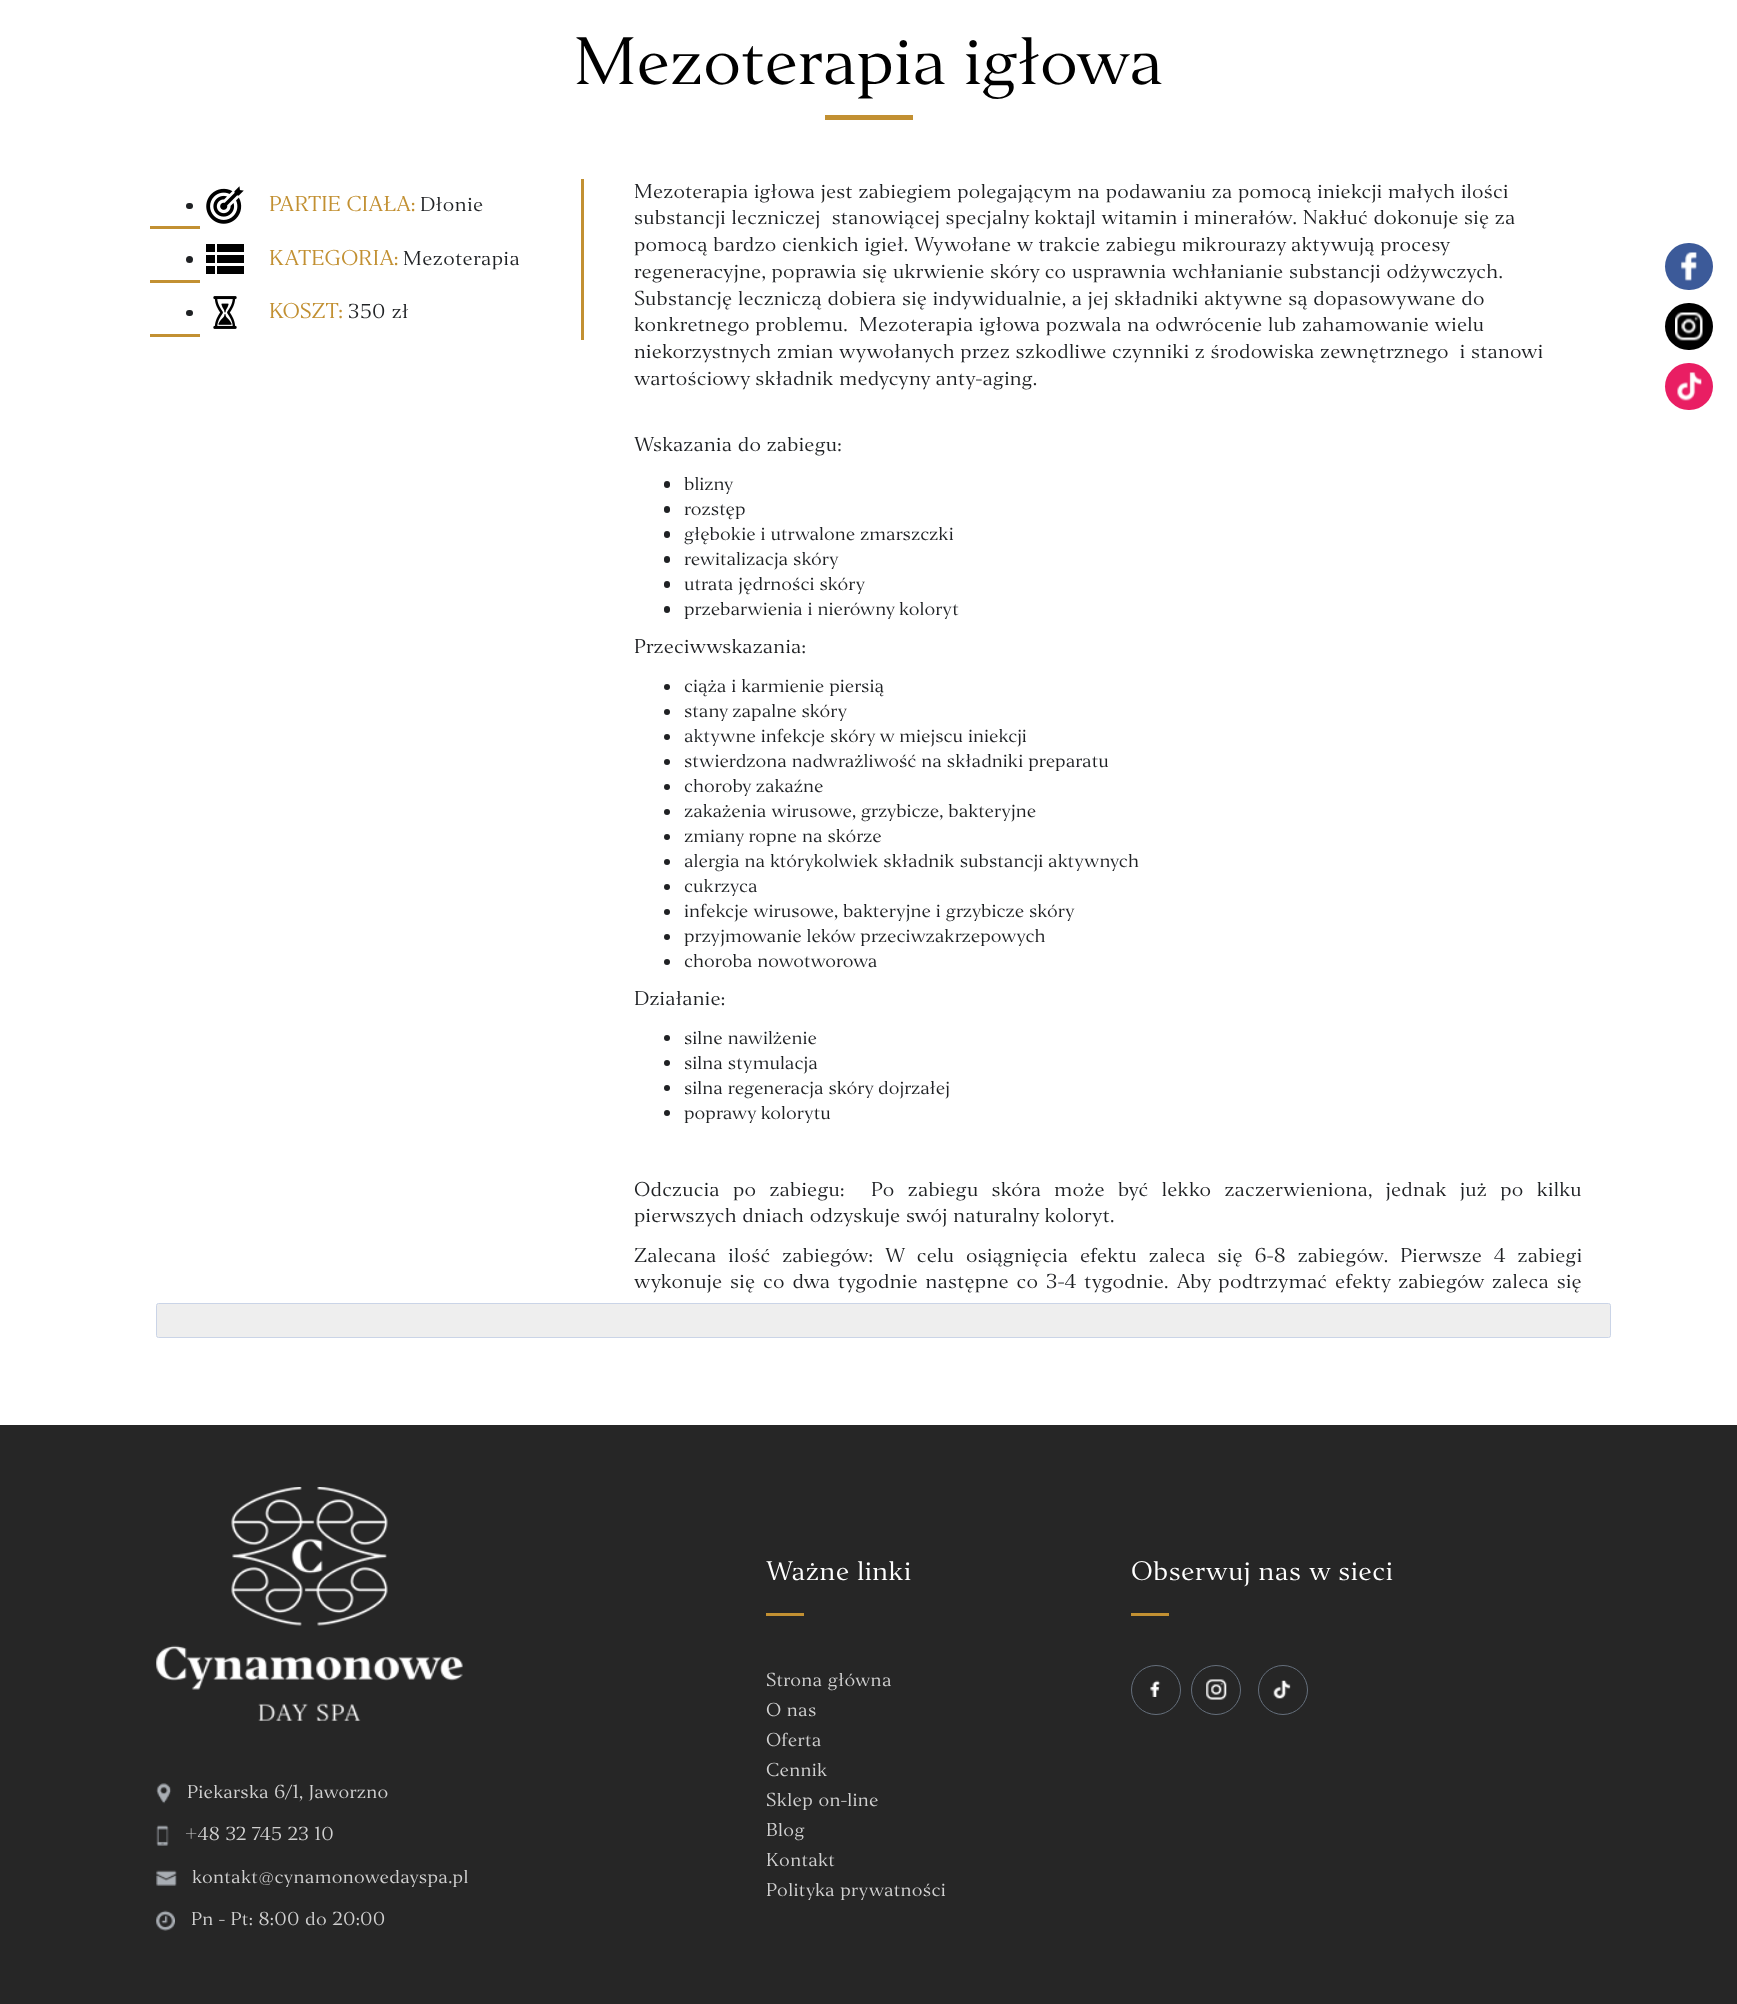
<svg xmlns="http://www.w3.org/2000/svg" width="1737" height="2004">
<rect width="100%" height="100%" fill="#fff"/>
<text x="574" y="84" style="font-family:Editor;font-size:62.5px;fill:#000">Mezoterapia igłowa</text>
<rect x="825" y="115" width="88" height="5" fill="#c29032"/>
<rect x="581" y="179" width="3" height="161" fill="#c29032"/>
<image x="206" y="186" width="38" height="38" href="media/1.png"/>
<rect x="186" y="203" width="7" height="6" rx="3" fill="#1f2124"/>
<text x="269" y="211" style="font-family:Editor;font-size:20px;fill:#c29032">PARTIE CIAŁA:</text>
<text x="420" y="211" style="font-family:Editor;font-size:18.75px;letter-spacing:0.5px;fill:#1f2124">Dłonie</text>
<rect x="150" y="226" width="50" height="3" fill="#c29032"/>
<rect x="206" y="244" width="9" height="8" fill="#000"/>
<rect x="217" y="244" width="27" height="8" fill="#000"/>
<rect x="206" y="255" width="9" height="8" fill="#000"/>
<rect x="217" y="255" width="27" height="8" fill="#000"/>
<rect x="206" y="266" width="9" height="8" fill="#000"/>
<rect x="217" y="266" width="27" height="8" fill="#000"/>
<circle cx="189.5" cy="259.5" r="3.5" fill="#1f2124"/>
<text x="269" y="265" style="font-family:Editor;font-size:20px;fill:#c29032">KATEGORIA:</text>
<text x="403" y="265" style="font-family:Editor;font-size:18.75px;letter-spacing:0.5px;fill:#1f2124">Mezoterapia</text>
<rect x="150" y="280" width="50" height="3" fill="#c29032"/>
<image x="213" y="296" width="24" height="33" href="media/2.png"/>
<rect x="186" y="310" width="7" height="6" rx="3" fill="#1f2124"/>
<text x="269" y="318" style="font-family:Editor;font-size:20px;fill:#c29032">KOSZT:</text>
<text x="348" y="318" style="font-family:Editor;font-size:18.75px;letter-spacing:0.5px;fill:#1f2124">350 zł</text>
<rect x="150" y="334" width="50" height="3" fill="#c29032"/>
<text x="634" y="198" style="font-family:Editor;font-size:18.75px;letter-spacing:0.25px;fill:#1f2124">Mezoterapia igłowa jest zabiegiem polegającym na podawaniu za pomocą iniekcji małych ilości</text>
<text x="634" y="224" style="font-family:Editor;font-size:18.75px;letter-spacing:0.25px;fill:#1f2124" xml:space="preserve">substancji leczniczej  stanowiącej specjalny koktajl witamin i minerałów. Nakłuć dokonuje się za</text>
<text x="634" y="251" style="font-family:Editor;font-size:18.75px;letter-spacing:0.25px;fill:#1f2124">pomocą bardzo cienkich igieł. Wywołane w trakcie zabiegu mikrourazy aktywują procesy</text>
<text x="634" y="278" style="font-family:Editor;font-size:18.75px;letter-spacing:0.25px;fill:#1f2124">regeneracyjne, poprawia się ukrwienie skóry co usprawnia wchłanianie substancji odżywczych.</text>
<text x="634" y="305" style="font-family:Editor;font-size:18.75px;letter-spacing:0.25px;fill:#1f2124">Substancję leczniczą dobiera się indywidualnie, a jej składniki aktywne są dopasowywane do</text>
<text x="634" y="331" style="font-family:Editor;font-size:18.75px;letter-spacing:0.25px;fill:#1f2124" xml:space="preserve">konkretnego problemu.  Mezoterapia igłowa pozwala na odwrócenie lub zahamowanie wielu</text>
<text x="634" y="358" style="font-family:Editor;font-size:18.75px;letter-spacing:0.25px;fill:#1f2124" xml:space="preserve">niekorzystnych zmian wywołanych przez szkodliwe czynniki z środowiska zewnętrznego  i stanowi</text>
<text x="634" y="385" style="font-family:Editor;font-size:18.75px;letter-spacing:0.25px;fill:#1f2124">wartościowy składnik medycyny anty-aging.</text>
<text x="634" y="451" style="font-family:Editor;font-size:18.75px;letter-spacing:0.25px;fill:#1f2124">Wskazania do zabiegu:</text>
<rect x="664" y="481" width="6" height="7" rx="3" fill="#1f2124"/>
<text x="684" y="490" style="font-family:Editor;font-size:17.5px;fill:#1f2124">blizny</text>
<rect x="664" y="506" width="6" height="7" rx="3" fill="#1f2124"/>
<text x="684" y="515" style="font-family:Editor;font-size:17.5px;fill:#1f2124">rozstęp</text>
<rect x="664" y="531" width="6" height="7" rx="3" fill="#1f2124"/>
<text x="684" y="540" style="font-family:Editor;font-size:17.5px;fill:#1f2124">głębokie i utrwalone zmarszczki</text>
<rect x="664" y="556" width="6" height="7" rx="3" fill="#1f2124"/>
<text x="684" y="565" style="font-family:Editor;font-size:17.5px;fill:#1f2124">rewitalizacja skóry</text>
<rect x="664" y="581" width="6" height="7" rx="3" fill="#1f2124"/>
<text x="684" y="590" style="font-family:Editor;font-size:17.5px;fill:#1f2124">utrata jędrności skóry</text>
<rect x="664" y="606" width="6" height="7" rx="3" fill="#1f2124"/>
<text x="684" y="615" style="font-family:Editor;font-size:17.5px;fill:#1f2124">przebarwienia i nierówny koloryt</text>
<text x="634" y="653" style="font-family:Editor;font-size:18.75px;letter-spacing:0.25px;fill:#1f2124">Przeciwwskazania:</text>
<circle cx="667" cy="687" r="3" fill="#1f2124"/>
<text x="684" y="692" style="font-family:Editor;font-size:17.5px;fill:#1f2124">ciąża i karmienie piersią</text>
<circle cx="667" cy="712" r="3" fill="#1f2124"/>
<text x="684" y="717" style="font-family:Editor;font-size:17.5px;fill:#1f2124">stany zapalne skóry</text>
<circle cx="667" cy="737" r="3" fill="#1f2124"/>
<text x="684" y="742" style="font-family:Editor;font-size:17.5px;fill:#1f2124">aktywne infekcje skóry w miejscu iniekcji</text>
<circle cx="667" cy="762" r="3" fill="#1f2124"/>
<text x="684" y="767" style="font-family:Editor;font-size:17.5px;fill:#1f2124">stwierdzona nadwrażliwość na składniki preparatu</text>
<circle cx="667" cy="787" r="3" fill="#1f2124"/>
<text x="684" y="792" style="font-family:Editor;font-size:17.5px;fill:#1f2124">choroby zakaźne</text>
<circle cx="667" cy="812" r="3" fill="#1f2124"/>
<text x="684" y="817" style="font-family:Editor;font-size:17.5px;fill:#1f2124">zakażenia wirusowe, grzybicze, bakteryjne</text>
<circle cx="667" cy="837" r="3" fill="#1f2124"/>
<text x="684" y="842" style="font-family:Editor;font-size:17.5px;fill:#1f2124">zmiany ropne na skórze</text>
<circle cx="667" cy="862" r="3" fill="#1f2124"/>
<text x="684" y="867" style="font-family:Editor;font-size:17.5px;fill:#1f2124">alergia na którykolwiek składnik substancji aktywnych</text>
<circle cx="667" cy="887" r="3" fill="#1f2124"/>
<text x="684" y="892" style="font-family:Editor;font-size:17.5px;fill:#1f2124">cukrzyca</text>
<circle cx="667" cy="912" r="3" fill="#1f2124"/>
<text x="684" y="917" style="font-family:Editor;font-size:17.5px;fill:#1f2124">infekcje wirusowe, bakteryjne i grzybicze skóry</text>
<circle cx="667" cy="937" r="3" fill="#1f2124"/>
<text x="684" y="942" style="font-family:Editor;font-size:17.5px;fill:#1f2124">przyjmowanie leków przeciwzakrzepowych</text>
<circle cx="667" cy="962" r="3" fill="#1f2124"/>
<text x="684" y="967" style="font-family:Editor;font-size:17.5px;fill:#1f2124">choroba nowotworowa</text>
<text x="634" y="1005" style="font-family:Editor;font-size:18.75px;letter-spacing:0.25px;fill:#1f2124">Działanie:</text>
<circle cx="667" cy="1038" r="3" fill="#1f2124"/>
<text x="684" y="1044" style="font-family:Editor;font-size:17.5px;fill:#1f2124">silne nawilżenie</text>
<circle cx="667" cy="1063" r="3" fill="#1f2124"/>
<text x="684" y="1069" style="font-family:Editor;font-size:17.5px;fill:#1f2124">silna stymulacja</text>
<circle cx="667" cy="1088" r="3" fill="#1f2124"/>
<text x="684" y="1094" style="font-family:Editor;font-size:17.5px;fill:#1f2124">silna regeneracja skóry dojrzałej</text>
<circle cx="667" cy="1113" r="3" fill="#1f2124"/>
<text x="684" y="1119" style="font-family:Editor;font-size:17.5px;fill:#1f2124">poprawy kolorytu</text>
<text x="634" y="1196" word-spacing="7.6" style="font-family:Editor;font-size:18.75px;letter-spacing:0.25px;fill:#1f2124" xml:space="preserve">Odczucia po zabiegu:  Po zabiegu skóra może być lekko zaczerwieniona, jednak już po kilku</text>
<text x="634" y="1222" style="font-family:Editor;font-size:18.75px;letter-spacing:0.25px;fill:#1f2124">pierwszych dniach odzyskuje swój naturalny koloryt.</text>
<text x="634" y="1262" word-spacing="6.25" style="font-family:Editor;font-size:18.75px;letter-spacing:0.25px;fill:#1f2124">Zalecana ilość zabiegów: W celu osiągnięcia efektu zaleca się 6-8 zabiegów. Pierwsze 4 zabiegi</text>
<text x="634" y="1288" word-spacing="2.25" style="font-family:Editor;font-size:18.75px;letter-spacing:0.25px;fill:#1f2124">wykonuje się co dwa tygodnie następne co 3-4 tygodnie. Aby podtrzymać efekty zabiegów zaleca się</text>
<rect x="156.5" y="1303.5" width="1454" height="34" rx="2" fill="#eee" stroke="#cad4e7"/>
<rect x="1665" y="243" width="48" height="47" rx="23.5" fill="#3c5a99"/>
<image x="1680" y="252" width="17" height="29" href="media/3.png"/>
<rect x="1665" y="303" width="48" height="47" rx="23.5" fill="#000"/>
<image x="1675" y="312" width="28" height="29" href="media/4.png"/>
<rect x="1665" y="363" width="48" height="47" rx="23.5" fill="#e91e63"/>
<image x="1677" y="372" width="25" height="29" href="media/5.png"/>
<rect y="1425" width="1737" height="579" fill="#262626"/>
<text x="766" y="1580" style="font-family:Editor;font-size:25px;letter-spacing:0.5px;fill:#fff">Ważne linki</text>
<rect x="766" y="1613" width="38" height="3" fill="#c29032"/>
<text x="766" y="1686" style="font-family:Editor;font-size:17.5px;letter-spacing:0.3px;fill:#d0d0d0">Strona główna</text>
<text x="766" y="1716" style="font-family:Editor;font-size:17.5px;letter-spacing:0.3px;fill:#d0d0d0">O nas</text>
<text x="766" y="1746" style="font-family:Editor;font-size:17.5px;letter-spacing:0.3px;fill:#d0d0d0">Oferta</text>
<text x="766" y="1776" style="font-family:Editor;font-size:17.5px;letter-spacing:0.3px;fill:#d0d0d0">Cennik</text>
<text x="766" y="1806" style="font-family:Editor;font-size:17.5px;letter-spacing:0.3px;fill:#d0d0d0">Sklep on-line</text>
<text x="766" y="1836" style="font-family:Editor;font-size:17.5px;letter-spacing:0.3px;fill:#d0d0d0">Blog</text>
<text x="766" y="1866" style="font-family:Editor;font-size:17.5px;letter-spacing:0.3px;fill:#d0d0d0">Kontakt</text>
<text x="766" y="1896" style="font-family:Editor;font-size:17.5px;letter-spacing:0.3px;fill:#d0d0d0">Polityka prywatności</text>
<text x="1131" y="1580" style="font-family:Editor;font-size:25px;letter-spacing:0.5px;fill:#fff">Obserwuj nas w sieci</text>
<rect x="1131" y="1613" width="38" height="3" fill="#c29032"/>
<circle cx="1156" cy="1690" r="24.5" fill="none" stroke="#656f7c"/>
<image x="1150" y="1680" width="11" height="17" href="media/6.png"/>
<circle cx="1216" cy="1690" r="24.5" fill="none" stroke="#656f7c"/>
<image x="1206" y="1679" width="21" height="21" href="media/7.png"/>
<circle cx="1283" cy="1690" r="24.5" fill="none" stroke="#656f7c"/>
<image x="1273" y="1680" width="18" height="19" href="media/8.png"/>
<image x="156" y="1487" width="307" height="234" href="media/9.png"/>
<image x="156" y="1783" width="16" height="21" href="media/10.png"/>
<text x="187" y="1798" style="font-family:Editor;font-size:17.5px;letter-spacing:0.3px;fill:#d0d0d0">Piekarska 6/1, Jaworzno</text>
<image x="156" y="1825" width="13" height="21" href="media/11.png"/>
<text x="185" y="1840" style="font-family:Editor;font-size:17.5px;letter-spacing:0.3px;fill:#d0d0d0">+48 32 745 23 10</text>
<image x="156" y="1870" width="21" height="16" href="media/12.png"/>
<text x="192" y="1883" style="font-family:Editor;font-size:17.5px;letter-spacing:0.3px;fill:#d0d0d0">kontakt@cynamonowedayspa.pl</text>
<image x="156" y="1910" width="19" height="21" href="media/13.png"/>
<text x="191" y="1925" style="font-family:Editor;font-size:17.5px;letter-spacing:0.3px;fill:#d0d0d0">Pn - Pt: 8:00 do 20:00</text>
</svg>
